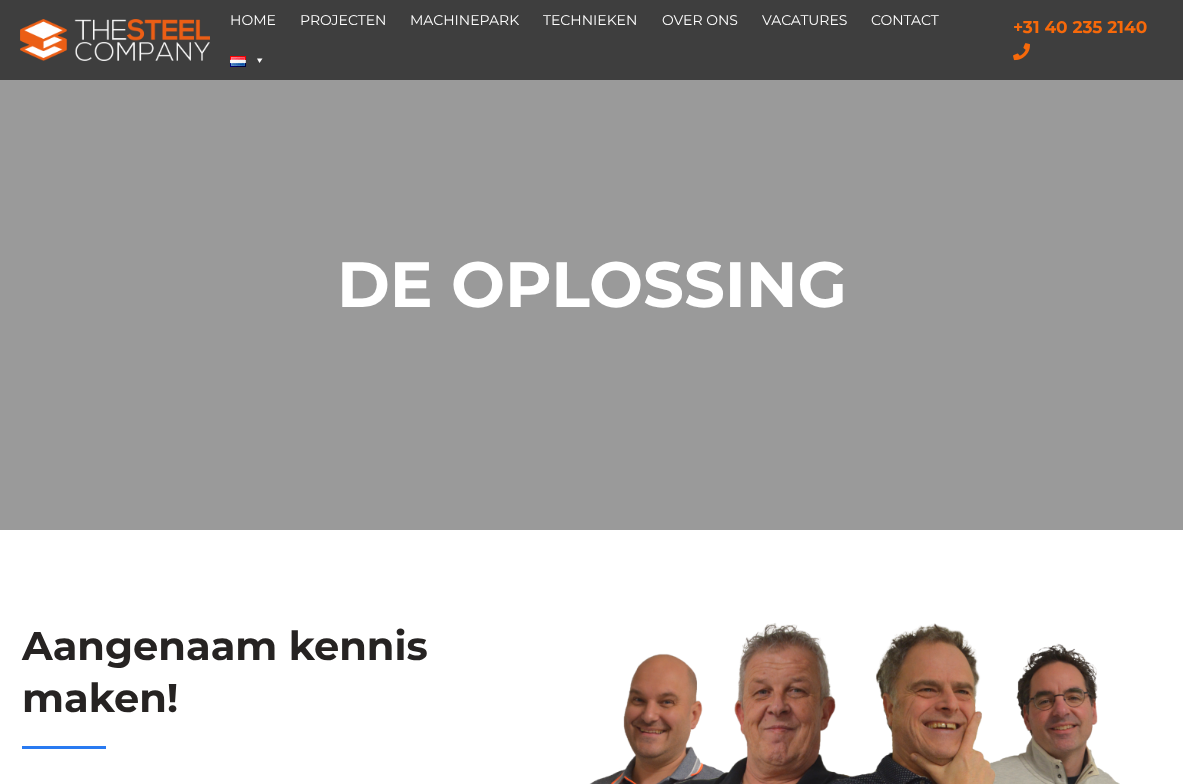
<svg xmlns="http://www.w3.org/2000/svg" width="1183" height="784">
<rect width="100%" height="100%" fill="#fff"/>
<rect width="1183" height="80" fill="#3e3e3e"/>
<image x="20" y="19" width="190" height="42" href="media/1.png"/>
<text x="230" y="25" style="font-family:Montserrat;font-size:14px;fill:#fff">HOME</text>
<text x="300" y="25" style="font-family:Montserrat;font-size:14px;fill:#fff">PROJECTEN</text>
<text x="410" y="25" style="font-family:Montserrat;font-size:14px;fill:#fff">MACHINEPARK</text>
<text x="543" y="25" style="font-family:Montserrat;font-size:14px;fill:#fff">TECHNIEKEN</text>
<text x="662" y="25" style="font-family:Montserrat;font-size:14px;fill:#fff">OVER ONS</text>
<text x="762" y="25" style="font-family:Montserrat;font-size:14px;fill:#fff">VACATURES</text>
<text x="871" y="25" style="font-family:Montserrat;font-size:14px;fill:#fff">CONTACT</text>
<image x="230" y="56" width="16" height="11" href="media/2.png"/>
<path d="M262.5 58.5l-3 4.5l-2.5-4.5z" fill="#fff"/>
<text x="1013" y="33" style="font-family:Montserrat;font-size:17px;font-weight:bold;fill:#f7690a">+31 40 235 2140</text>
<image x="1013" y="43" width="17" height="18" href="media/3.png"/>
<rect y="80" width="1183" height="450" fill="#9a9a9a"/>
<text x="337" y="307" style="font-family:Montserrat;font-size:64px;font-weight:bold;fill:#fff">DE OPLOSSING</text>
<text x="22" y="660" style="font-family:Montserrat;font-size:40px;font-weight:bold;fill:#262322">Aangenaam kennis</text>
<text x="22" y="712" style="font-family:Montserrat;font-size:40px;font-weight:bold;fill:#262322">maken!</text>
<rect x="22" y="746" width="84" height="3" fill="#297af1"/>
<image x="589" y="622" width="531" height="162" href="media/4.png"/>
</svg>
